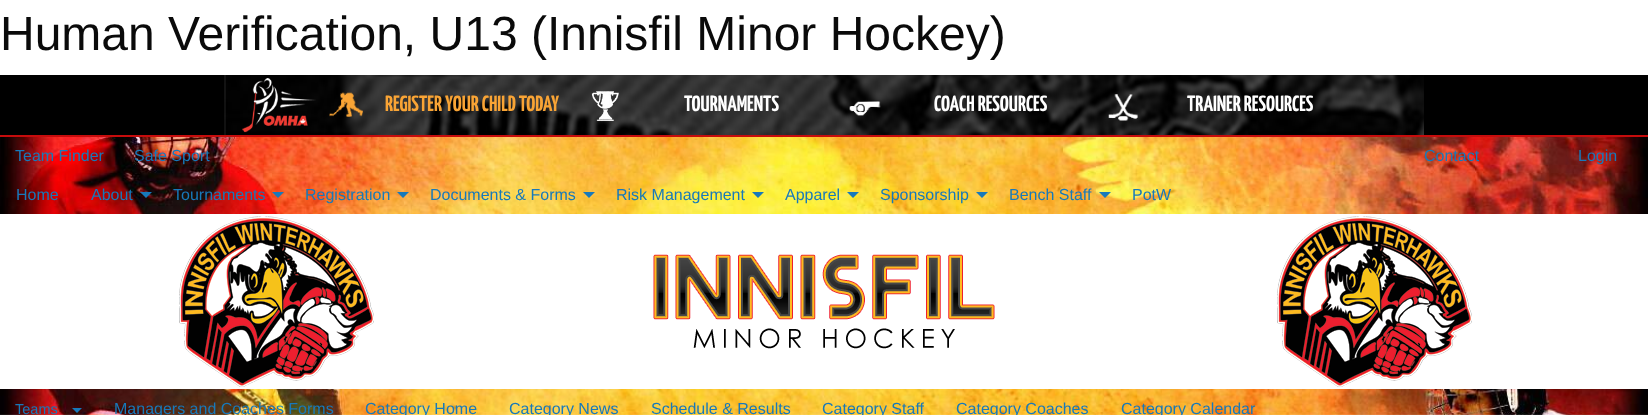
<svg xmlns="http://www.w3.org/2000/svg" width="1648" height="415">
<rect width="100%" height="100%" fill="#fff"/>
<text x="0" y="50" style="font-family:Liberation Sans;font-size:48px;fill:#0a0a0a">Human Verification, U13 (Innisfil Minor Hockey)</text>
<rect y="75" width="1648" height="60" fill="#000"/>
<rect y="135" width="1648" height="2" fill="#c60c0c"/>
<image x="224" y="75" width="1200" height="60" href="media/1.png"/>
<image x="242" y="78" width="74" height="55" href="media/2.png"/>
<image x="329" y="92" width="34" height="25" href="media/3.png"/>
<text x="385" y="111" style="font-family:Yanone Kaffeesatz;font-size:22px;font-weight:200;fill:#f9a435">REGISTER YOUR CHILD TODAY</text>
<image x="591" y="91" width="28" height="31" href="media/4.png"/>
<text x="684" y="111" style="font-family:Yanone Kaffeesatz;font-size:22px;font-weight:200;fill:#fff">TOURNAMENTS</text>
<image x="849" y="101" width="32" height="15" href="media/5.png"/>
<text x="934" y="111" style="font-family:Yanone Kaffeesatz;font-size:22px;font-weight:200;fill:#fff">COACH RESOURCES</text>
<image x="1108" y="94" width="30" height="27" href="media/6.png"/>
<text x="1187" y="111" style="font-family:Yanone Kaffeesatz;font-size:22px;font-weight:200;fill:#fff">TRAINER RESOURCES</text>
<image x="0" y="137" width="1648" height="278" href="media/7.png"/>
<text x="15" y="161" style="font-family:Liberation Sans;font-size:16px;fill:#1779ba">Team Finder</text>
<text x="134" y="161" style="font-family:Liberation Sans;font-size:16px;fill:#1779ba">Safe Sport</text>
<text x="1424" y="161" style="font-family:Liberation Sans;font-size:16px;fill:#1779ba">Contact</text>
<text x="1578" y="161" style="font-family:Liberation Sans;font-size:16px;fill:#1779ba">Login</text>
<text x="16" y="200" style="font-family:Liberation Sans;font-size:16px;fill:#1779ba">Home</text>
<text x="91" y="200" style="font-family:Liberation Sans;font-size:16px;fill:#1779ba">About</text>
<path d="M140 192h12l-6 6z" fill="#1779ba"/>
<text x="173" y="200" style="font-family:Liberation Sans;font-size:16px;fill:#1779ba">Tournaments</text>
<path d="M272 192h12l-6 6z" fill="#1779ba"/>
<text x="305" y="200" style="font-family:Liberation Sans;font-size:16px;fill:#1779ba">Registration</text>
<path d="M397 192h12l-6 6z" fill="#1779ba"/>
<text x="430" y="200" style="font-family:Liberation Sans;font-size:16px;fill:#1779ba">Documents &amp; Forms</text>
<path d="M583 192h12l-6 6z" fill="#1779ba"/>
<text x="616" y="200" style="font-family:Liberation Sans;font-size:16px;fill:#1779ba">Risk Management</text>
<path d="M752 192h12l-6 6z" fill="#1779ba"/>
<text x="785" y="200" style="font-family:Liberation Sans;font-size:16px;fill:#1779ba">Apparel</text>
<path d="M847 192h12l-6 6z" fill="#1779ba"/>
<text x="880" y="200" style="font-family:Liberation Sans;font-size:16px;fill:#1779ba">Sponsorship</text>
<path d="M976 192h12l-6 6z" fill="#1779ba"/>
<text x="1009" y="200" style="font-family:Liberation Sans;font-size:16px;fill:#1779ba">Bench Staff</text>
<path d="M1099 192h12l-6 6z" fill="#1779ba"/>
<text x="1132" y="200" style="font-family:Liberation Sans;font-size:16px;fill:#1779ba">PotW</text>
<rect y="214" width="1648" height="175" fill="#fff"/>
<image x="179" y="216" width="195" height="171" href="media/8.png"/>
<image x="653" y="254" width="342" height="95" href="media/9.png"/>
<image x="1277" y="216" width="195" height="171" href="media/8.png"/>
<text x="15" y="414" style="font-family:Liberation Sans;font-size:14.5px;fill:#1779ba">Teams</text>
<path d="M72 408h10l-5 5z" fill="#1779ba"/>
<text x="114" y="414" style="font-family:Liberation Sans;font-size:16px;fill:#1779ba">Managers and Coaches Forms</text>
<text x="365" y="414" style="font-family:Liberation Sans;font-size:16px;fill:#1779ba">Category Home</text>
<text x="509" y="414" style="font-family:Liberation Sans;font-size:16px;fill:#1779ba">Category News</text>
<text x="651" y="414" style="font-family:Liberation Sans;font-size:16px;fill:#1779ba">Schedule &amp; Results</text>
<text x="822" y="414" style="font-family:Liberation Sans;font-size:16px;fill:#1779ba">Category Staff</text>
<text x="956" y="414" style="font-family:Liberation Sans;font-size:16px;fill:#1779ba">Category Coaches</text>
<text x="1121" y="414" style="font-family:Liberation Sans;font-size:16px;fill:#1779ba">Category Calendar</text>
</svg>
